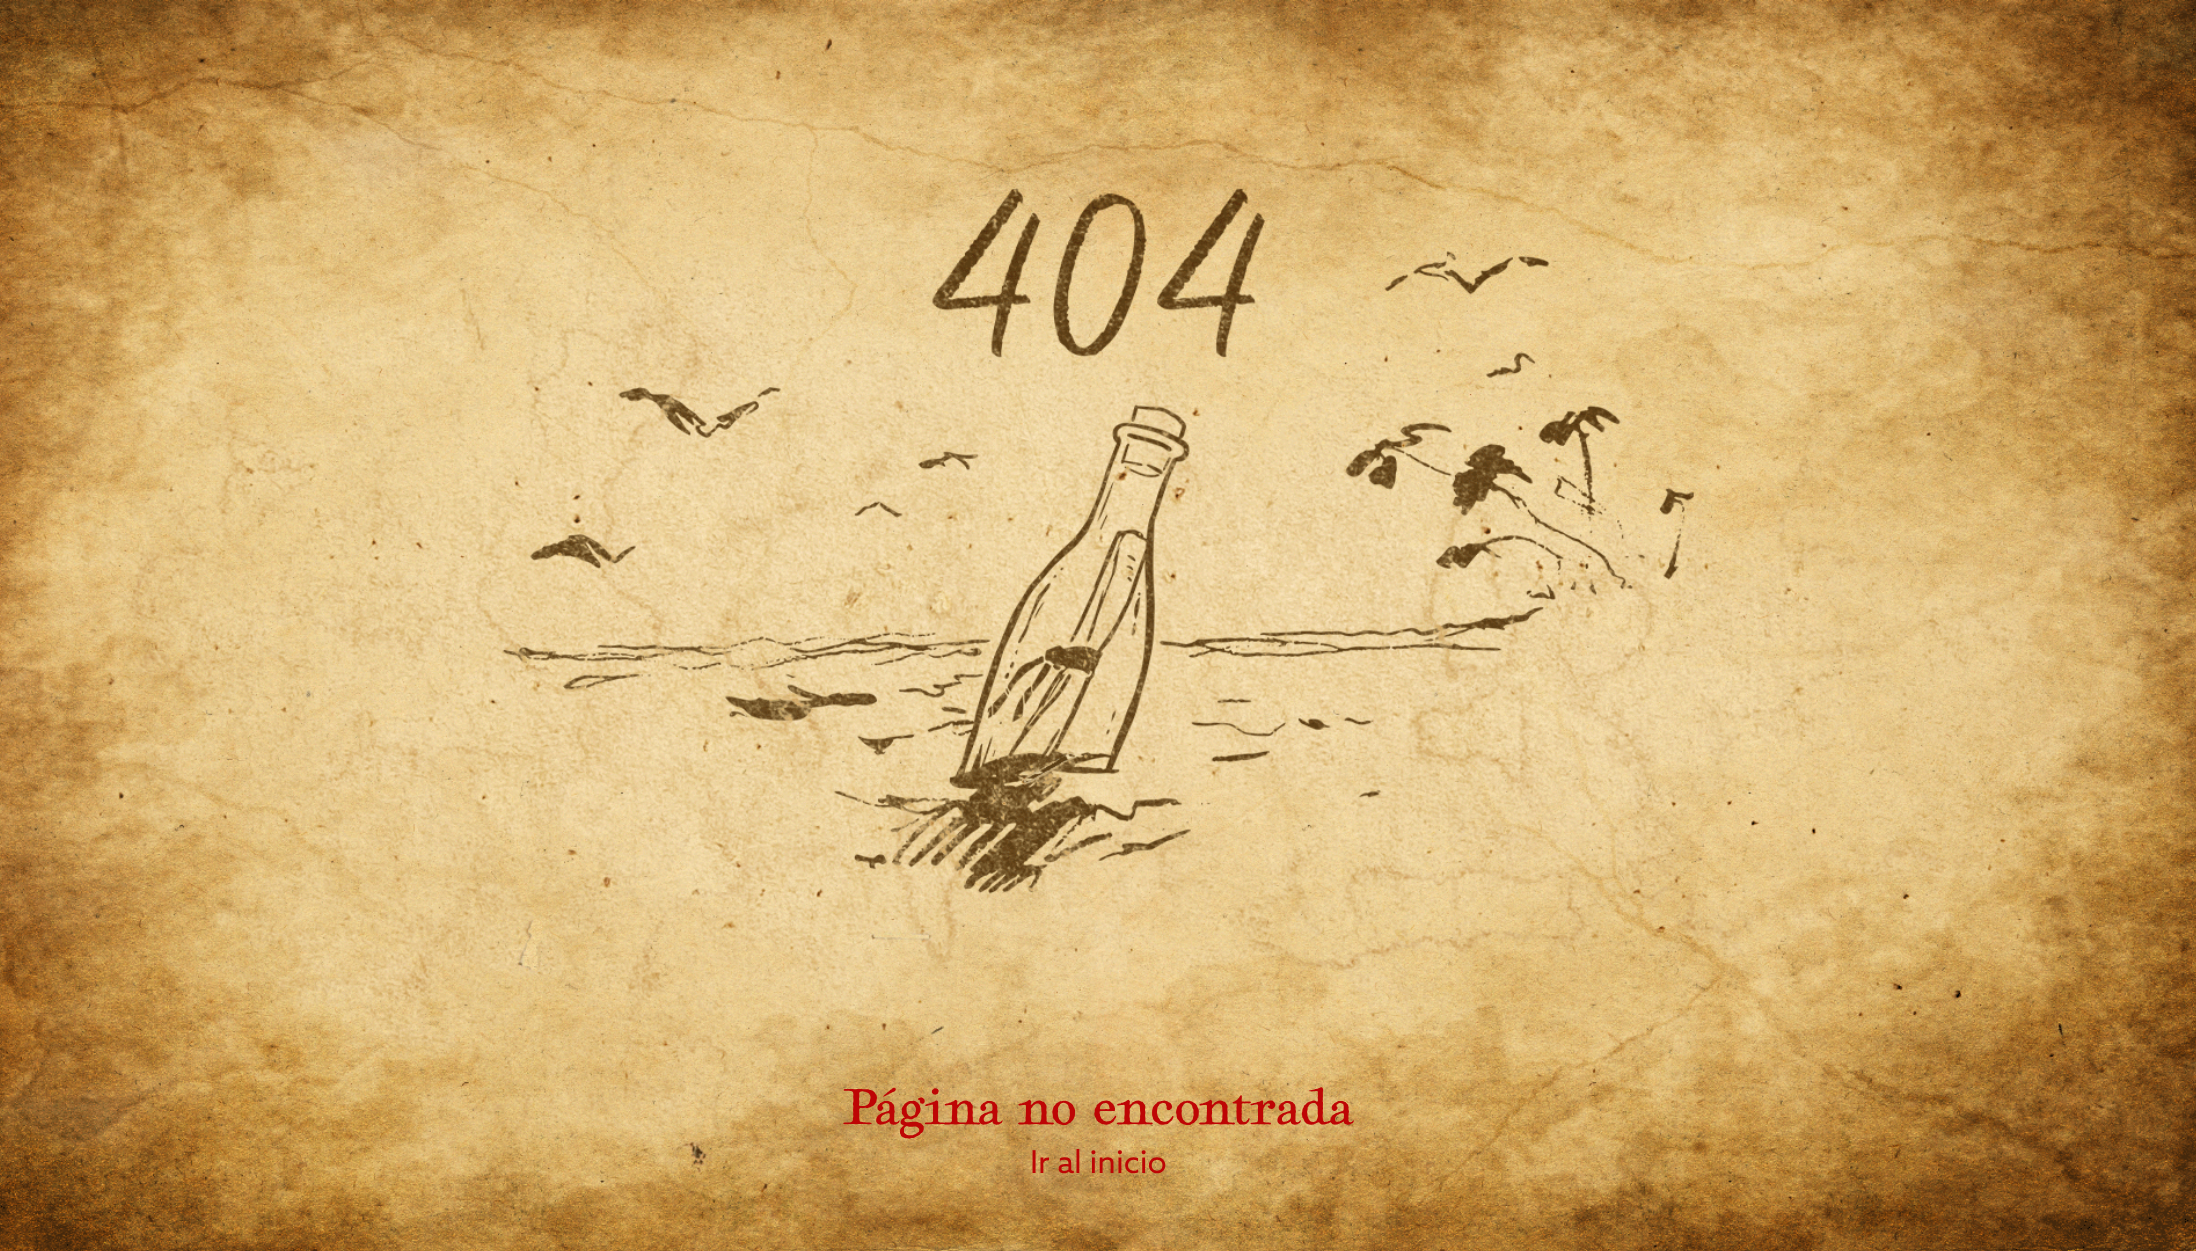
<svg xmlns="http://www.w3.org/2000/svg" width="2196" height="1251">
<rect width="100%" height="100%" fill="#fff"/>
<image x="0" y="0" width="2196" height="1251" href="media/1.png"/>
<text x="843" y="1124" style="font-family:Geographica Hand;font-size:52.5px;fill:#be0505">Página no encontrada</text>
<text x="1030" y="1173" style="font-family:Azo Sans;font-size:31.5px;fill:#be0505">Ir al inicio</text>
</svg>
